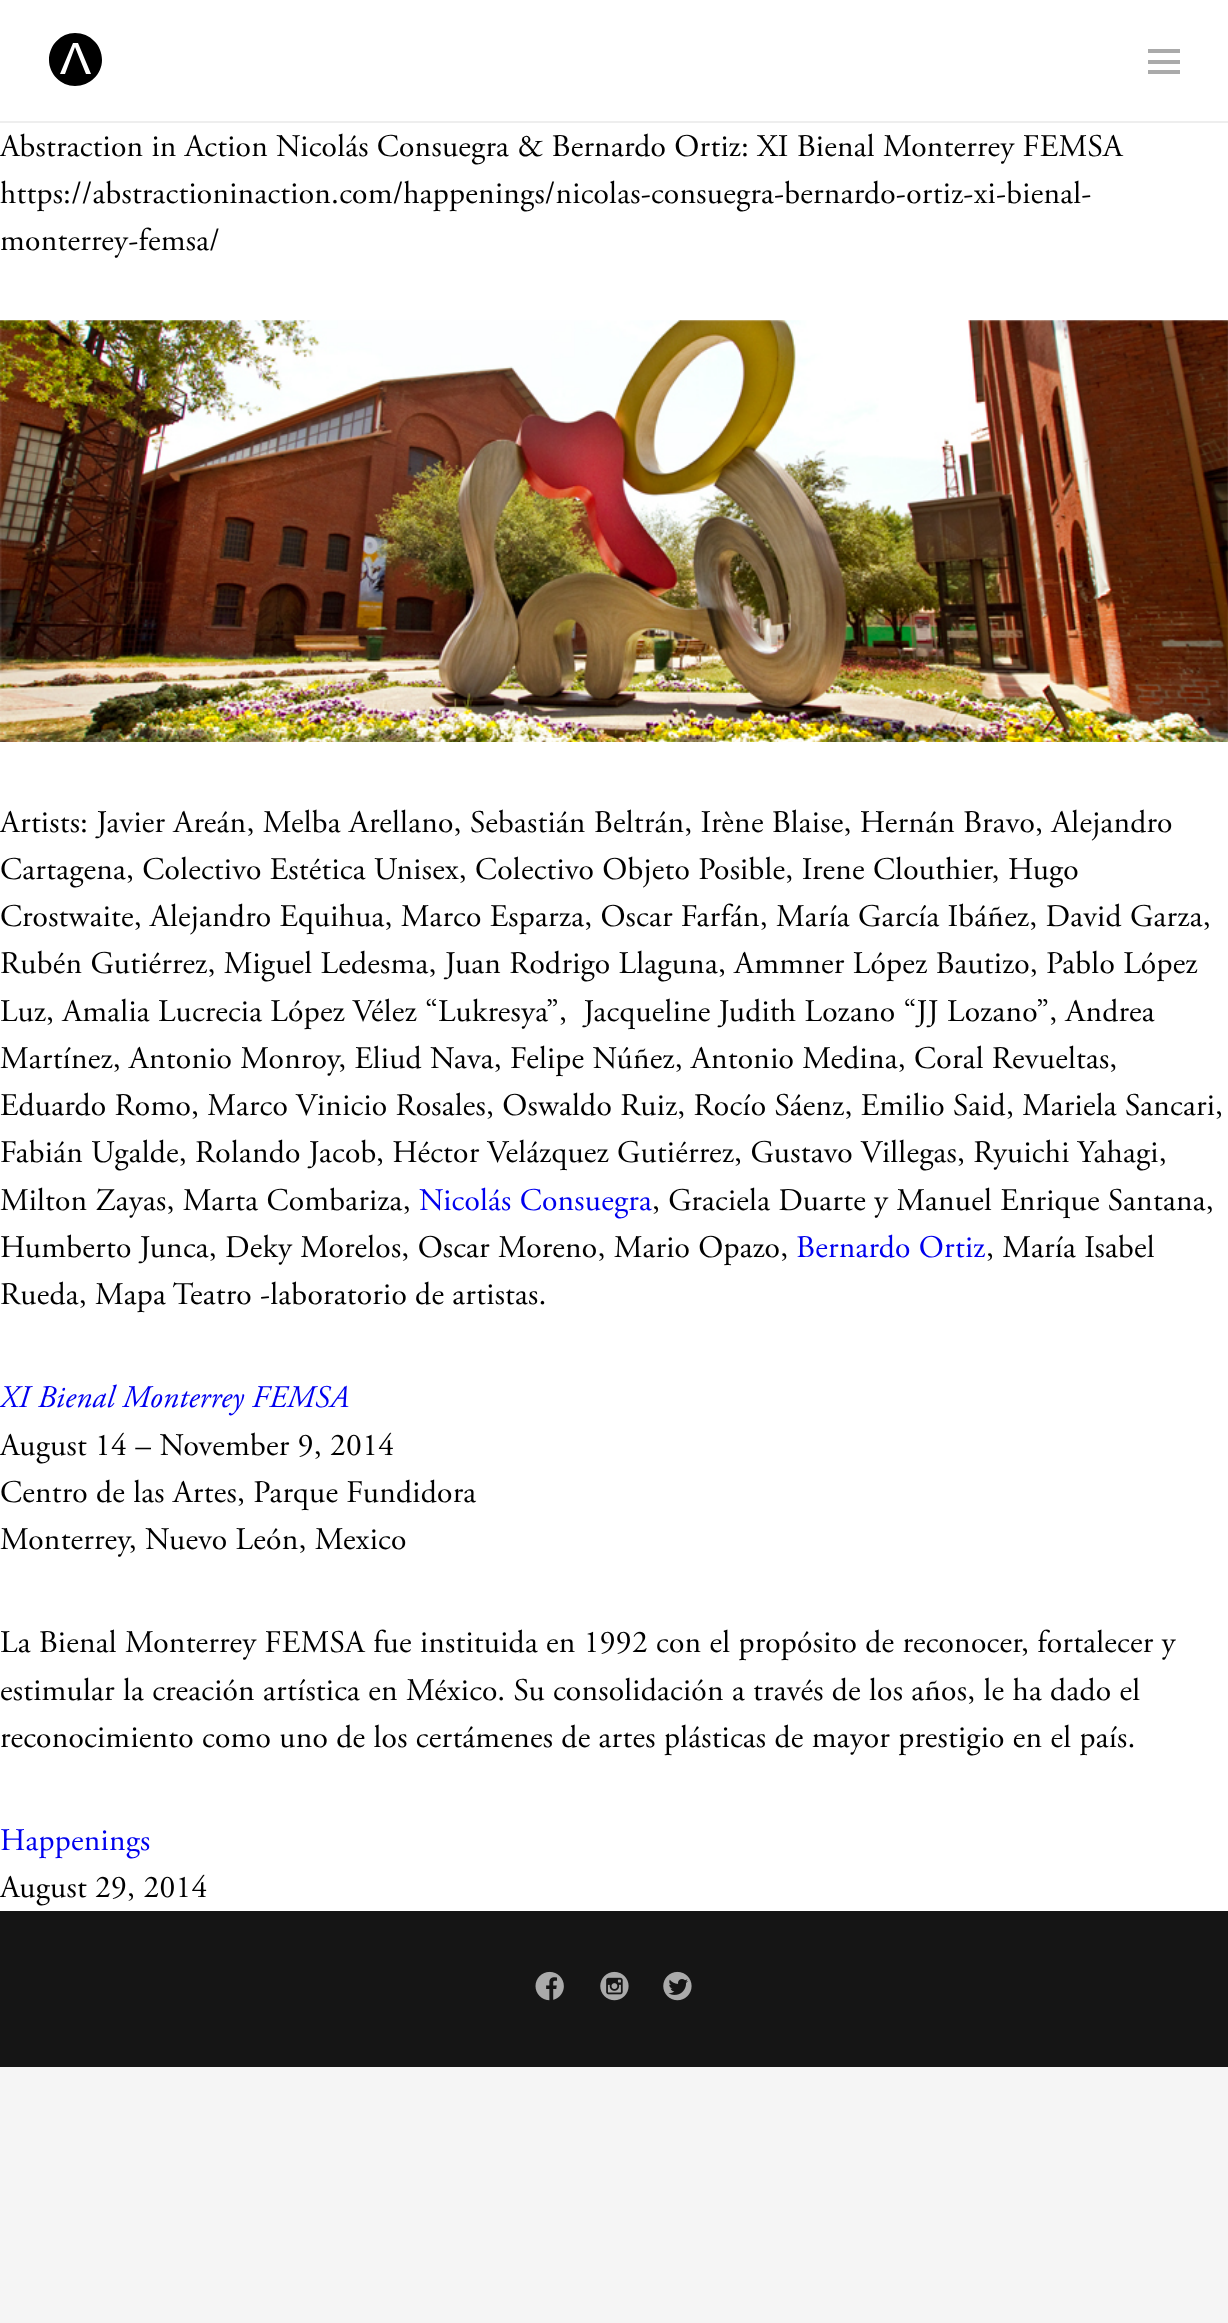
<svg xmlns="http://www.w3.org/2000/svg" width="1228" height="2323">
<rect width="100%" height="100%" fill="#f5f5f5"/>
<rect width="1228" height="1911" fill="#fff"/>
<rect y="121" width="1228" height="2" fill="#eee"/>
<path d="M75 33c-14 0-26 12-26 27c0 14 12 26 26 26c15 0 27-12 27-26c0-15-12-27-27-27zm11 41l-11-27l-10 27h-5l13-31h5l13 31z" fill="#000"/>
<rect x="1148" y="49" width="32" height="4" fill="#aaa"/>
<rect x="1148" y="60" width="32" height="4" fill="#aaa"/>
<rect x="1148" y="70" width="32" height="4" fill="#aaa"/>
<text x="0" y="156" style="font-family:Adobe Garamond;font-size:31.5px;letter-spacing:0.28px;fill:#000">Abstraction in Action Nicolás Consuegra &amp; Bernardo Ortiz: XI Bienal Monterrey FEMSA</text>
<text x="0" y="203" style="font-family:Adobe Garamond;font-size:31.5px;letter-spacing:0.28px;fill:#000">https://abstractioninaction.com/happenings/nicolas-consuegra-bernardo-ortiz-xi-bienal-</text>
<text x="0" y="250" style="font-family:Adobe Garamond;font-size:31.5px;letter-spacing:0.28px;fill:#000">monterrey-femsa/</text>
<image x="0" y="320" width="1228" height="422" href="media/1.png"/>
<text x="0" y="832" style="font-family:Adobe Garamond;font-size:31.5px;letter-spacing:0.28px;fill:#000">Artists: Javier Areán, Melba Arellano, Sebastián Beltrán, Irène Blaise, Hernán Bravo, Alejandro</text>
<text x="0" y="879" style="font-family:Adobe Garamond;font-size:31.5px;letter-spacing:0.28px;fill:#000">Cartagena, Colectivo Estética Unisex, Colectivo Objeto Posible, Irene Clouthier, Hugo</text>
<text x="0" y="926" style="font-family:Adobe Garamond;font-size:31.5px;letter-spacing:0.28px;fill:#000">Crostwaite, Alejandro Equihua, Marco Esparza, Oscar Farfán, María García Ibáñez, David Garza,</text>
<text x="0" y="973" style="font-family:Adobe Garamond;font-size:31.5px;letter-spacing:0.28px;fill:#000">Rubén Gutiérrez, Miguel Ledesma, Juan Rodrigo Llaguna, Ammner López Bautizo, Pablo López</text>
<text x="0" y="1021" style="font-family:Adobe Garamond;font-size:31.5px;letter-spacing:0.28px;fill:#000" xml:space="preserve">Luz, Amalia Lucrecia López Vélez “Lukresya”,  Jacqueline Judith Lozano “JJ Lozano”, Andrea</text>
<text x="0" y="1068" style="font-family:Adobe Garamond;font-size:31.5px;letter-spacing:0.28px;fill:#000">Martínez, Antonio Monroy, Eliud Nava, Felipe Núñez, Antonio Medina, Coral Revueltas,</text>
<text x="0" y="1115" style="font-family:Adobe Garamond;font-size:31.5px;letter-spacing:0.28px;fill:#000">Eduardo Romo, Marco Vinicio Rosales, Oswaldo Ruiz, Rocío Sáenz, Emilio Said, Mariela Sancari,</text>
<text x="0" y="1162" style="font-family:Adobe Garamond;font-size:31.5px;letter-spacing:0.28px;fill:#000">Fabián Ugalde, Rolando Jacob, Héctor Velázquez Gutiérrez, Gustavo Villegas, Ryuichi Yahagi,</text>
<text x="0" y="1210" style="font-family:Adobe Garamond;font-size:31.5px;letter-spacing:0.28px;fill:#000">Milton Zayas, Marta Combariza,</text>
<text x="419" y="1210" style="font-family:Adobe Garamond;font-size:31.5px;letter-spacing:0.28px;fill:#00e">Nicolás Consuegra</text>
<text x="652" y="1210" style="font-family:Adobe Garamond;font-size:31.5px;letter-spacing:0.28px;fill:#000">, Graciela Duarte y Manuel Enrique Santana,</text>
<text x="0" y="1257" style="font-family:Adobe Garamond;font-size:31.5px;letter-spacing:0.28px;fill:#000">Humberto Junca, Deky Morelos, Oscar Moreno, Mario Opazo,</text>
<text x="796" y="1257" style="font-family:Adobe Garamond;font-size:31.5px;letter-spacing:0.28px;fill:#00e">Bernardo Ortiz</text>
<text x="986" y="1257" style="font-family:Adobe Garamond;font-size:31.5px;letter-spacing:0.28px;fill:#000">, María Isabel</text>
<text x="0" y="1304" style="font-family:Adobe Garamond;font-size:31.5px;letter-spacing:0.28px;fill:#000">Rueda, Mapa Teatro -laboratorio de artistas.</text>
<text x="0" y="1407" style="font-family:Adobe Garamond;font-size:31.5px;font-style:italic;letter-spacing:0.28px;fill:#00e">XI Bienal Monterrey FEMSA</text>
<text x="0" y="1455" style="font-family:Adobe Garamond;font-size:31.5px;letter-spacing:0.28px;fill:#000">August 14 – November 9, 2014</text>
<text x="0" y="1502" style="font-family:Adobe Garamond;font-size:31.5px;letter-spacing:0.28px;fill:#000">Centro de las Artes, Parque Fundidora</text>
<text x="0" y="1549" style="font-family:Adobe Garamond;font-size:31.5px;letter-spacing:0.28px;fill:#000">Monterrey, Nuevo León, Mexico</text>
<text x="0" y="1652" style="font-family:Adobe Garamond;font-size:31.5px;letter-spacing:0.28px;fill:#000">La Bienal Monterrey FEMSA fue instituida en 1992 con el propósito de reconocer, fortalecer y</text>
<text x="0" y="1700" style="font-family:Adobe Garamond;font-size:31.5px;letter-spacing:0.28px;fill:#000">estimular la creación artística en México. Su consolidación a través de los años, le ha dado el</text>
<text x="0" y="1747" style="font-family:Adobe Garamond;font-size:31.5px;letter-spacing:0.28px;fill:#000">reconocimiento como uno de los certámenes de artes plásticas de mayor prestigio en el país.</text>
<text x="0" y="1850" style="font-family:Adobe Garamond;font-size:31.5px;letter-spacing:0.28px;fill:#00e">Happenings</text>
<text x="0" y="1897" style="font-family:Adobe Garamond;font-size:31.5px;letter-spacing:0.28px;fill:#000">August 29, 2014</text>
<rect y="1911" width="1228" height="156" fill="#151515"/>
<image x="535" y="1971" width="29" height="30" href="media/2.png"/>
<image x="600" y="1971" width="29" height="30" href="media/3.png"/>
<image x="663" y="1971" width="29" height="30" href="media/4.png"/>
</svg>
